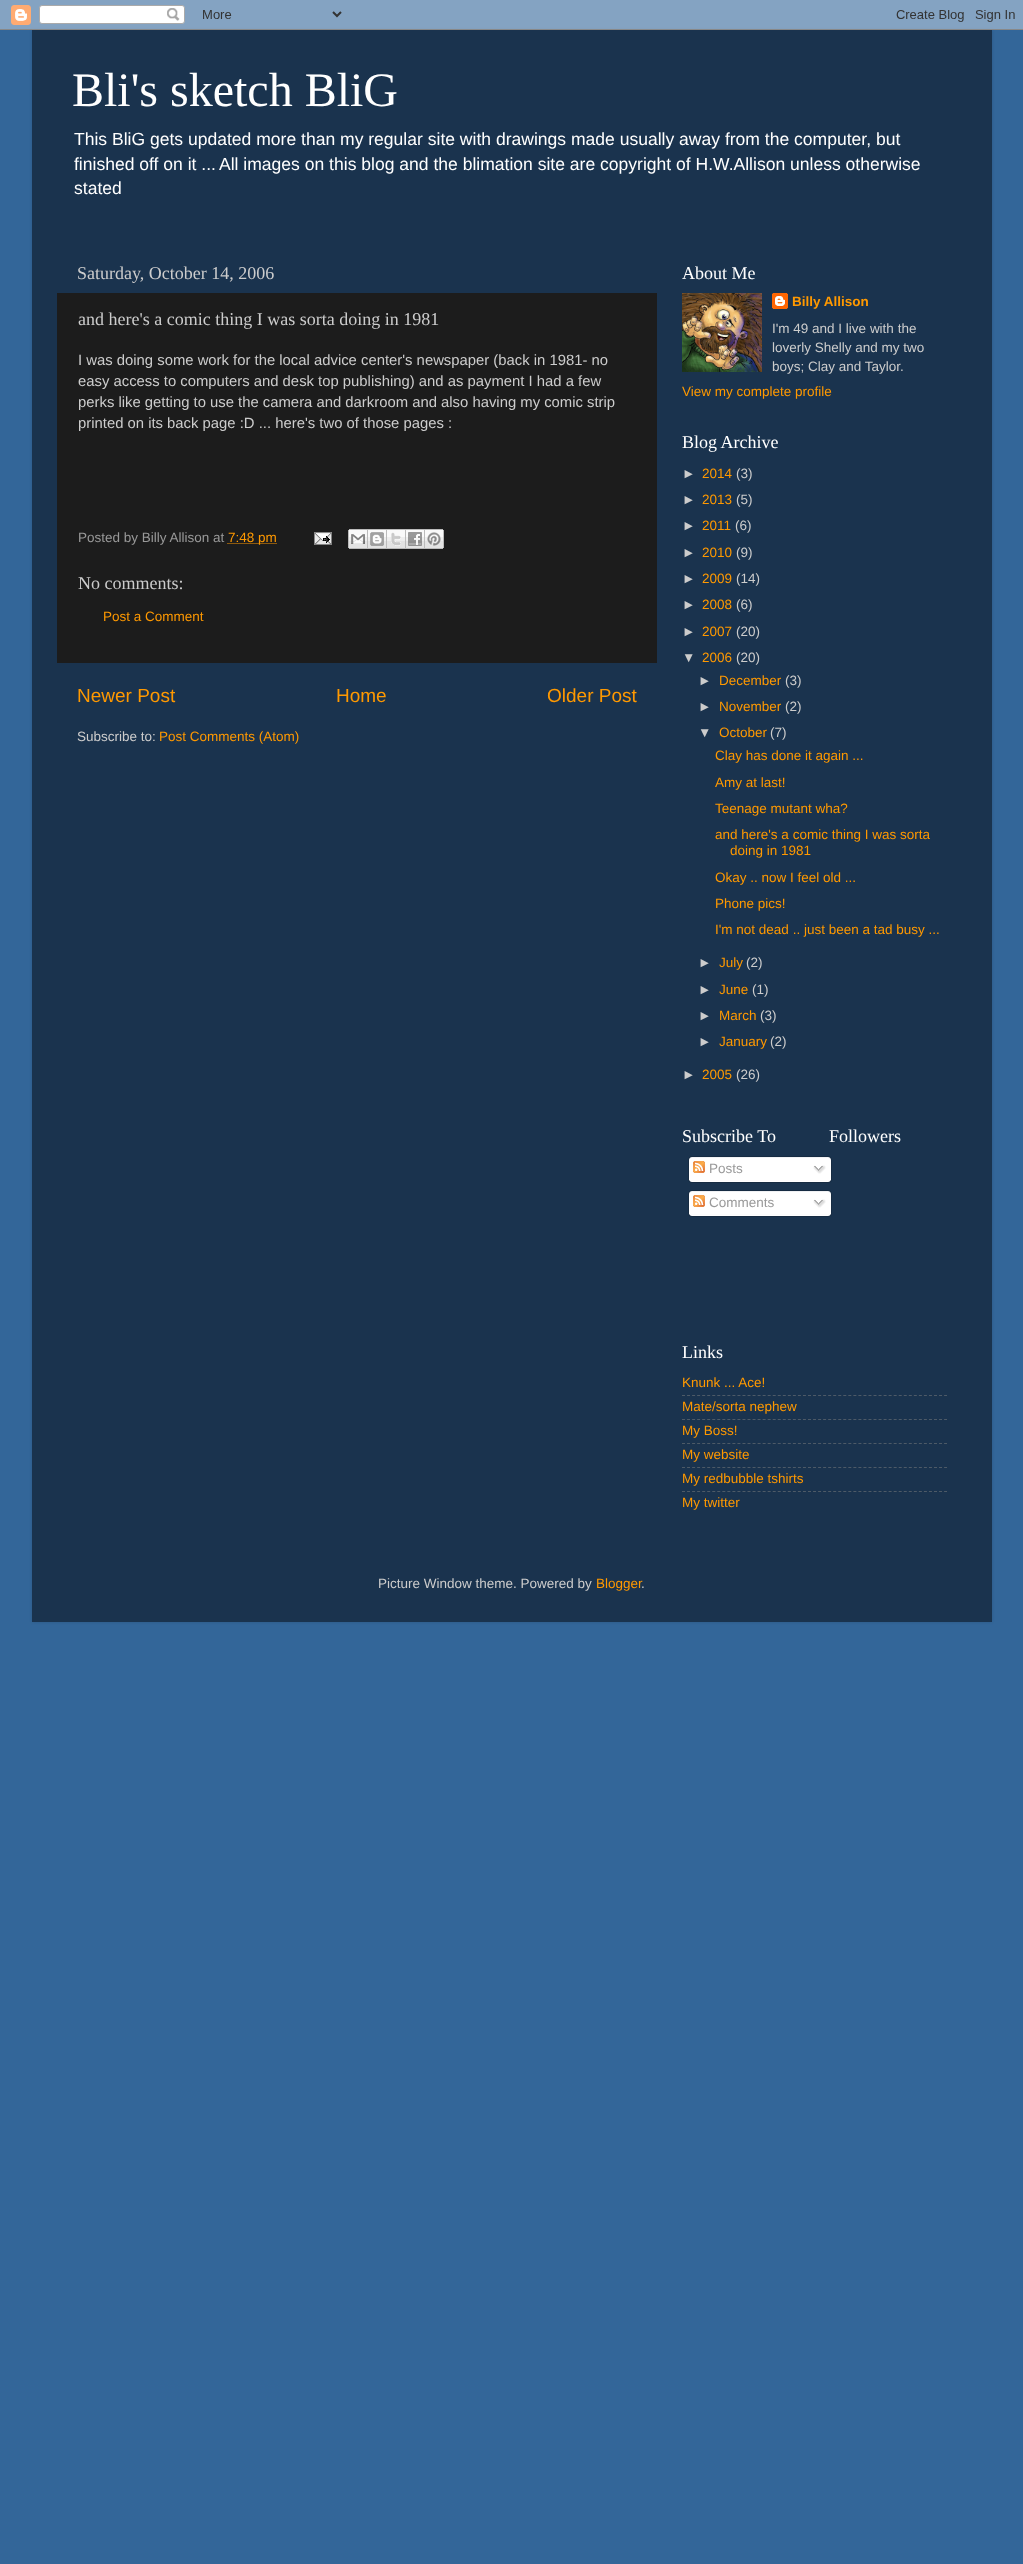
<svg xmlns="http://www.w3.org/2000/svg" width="1023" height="2564">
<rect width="100%" height="100%" fill="#369"/>
<rect x="32" y="30" width="960" height="1592" fill="#00000026" filter="blur(1.5px)"/>
<image x="0" y="0" width="1023" height="30" href="media/1.png"/>
<rect x="32" y="30" width="960" height="1592" fill="#1a334e"/>
<text x="72" y="106" style="font-family:Liberation Serif;font-size:48px;fill:#fff">Bli's sketch BliG</text>
<text x="74" y="145" style="font-family:Liberation Sans;font-size:17.55px;fill:#fff">This BliG gets updated more than my regular site with drawings made usually away from the computer, but</text>
<text x="74" y="170" style="font-family:Liberation Sans;font-size:17.55px;fill:#fff">finished off on it ...</text>
<text x="219" y="170" style="font-family:Liberation Sans;font-size:17.55px;fill:#fff">All images on this blog and the blimation site are copyright of H.W.Allison unless otherwise</text>
<text x="74" y="194" style="font-family:Liberation Sans;font-size:17.55px;fill:#fff">stated</text>
<text x="77" y="279" style="font-family:Liberation Serif;font-size:18px;fill:#ccc">Saturday, October 14, 2006</text>
<rect x="57" y="293" width="600" height="370" fill="#1c1c1c"/>
<text x="78" y="325" style="font-family:Liberation Serif;font-size:18px;fill:#ccc">and here's a comic thing I was sorta doing in 1981</text>
<text x="78" y="365" style="font-family:Liberation Sans;font-size:14.85px;fill:#ccc">I was doing some work for the local advice center's newspaper (back in 1981- no</text>
<text x="78" y="386" style="font-family:Liberation Sans;font-size:14.85px;fill:#ccc">easy access to computers and desk top publishing) and as payment I had a few</text>
<text x="78" y="407" style="font-family:Liberation Sans;font-size:14.85px;fill:#ccc">perks like getting to use the camera and darkroom and also having my comic strip</text>
<text x="78" y="428" style="font-family:Liberation Sans;font-size:14.85px;fill:#ccc">printed on its back page :D ... here's two of those pages :</text>
<text x="78" y="542" style="font-family:Liberation Sans;font-size:13.5px;fill:#999">Posted by Billy Allison at</text>
<path d="M227.5 543.5h49" fill="none" stroke="#f90" stroke-dasharray="1 1"/>
<text x="228" y="542" style="font-family:Liberation Sans;font-size:13.5px;fill:#f90">7:48 pm</text>
<image x="314" y="532" width="18" height="13" href="media/2.png"/>
<image x="348" y="529" width="20" height="20" href="media/3.png"/>
<image x="368" y="529" width="19" height="20" href="media/4.png"/>
<image x="387" y="529" width="19" height="20" href="media/5.png"/>
<image x="406" y="529" width="19" height="20" href="media/6.png"/>
<image x="425" y="529" width="19" height="20" href="media/7.png"/>
<text x="78" y="589" style="font-family:Liberation Serif;font-size:18px;fill:#ccc">No comments:</text>
<text x="103" y="621" style="font-family:Liberation Sans;font-size:13.5px;fill:#f90">Post a Comment</text>
<text x="77" y="702" style="font-family:Liberation Sans;font-size:19px;fill:#f90">Newer Post</text>
<text x="336" y="702" style="font-family:Liberation Sans;font-size:19px;fill:#f90">Home</text>
<text x="547" y="702" style="font-family:Liberation Sans;font-size:19px;fill:#f90">Older Post</text>
<text x="77" y="741" style="font-family:Liberation Sans;font-size:13.5px;fill:#ccc">Subscribe to:</text>
<text x="159" y="741" style="font-family:Liberation Sans;font-size:13.5px;fill:#f90">Post Comments (Atom)</text>
<text x="682" y="279" style="font-family:Liberation Serif;font-size:18px;fill:#fff">About Me</text>
<image x="682" y="293" width="80" height="79" href="media/8.png"/>
<image x="772" y="293" width="16" height="16" href="media/9.png"/>
<text x="792" y="306" style="font-family:Liberation Sans;font-size:13.5px;font-weight:bold;fill:#f90">Billy Allison</text>
<text x="772" y="333" style="font-family:Liberation Sans;font-size:13.5px;fill:#ccc">I'm 49 and I live with the</text>
<text x="772" y="352" style="font-family:Liberation Sans;font-size:13.5px;fill:#ccc">loverly Shelly and my two</text>
<text x="772" y="371" style="font-family:Liberation Sans;font-size:13.5px;fill:#ccc">boys; Clay and Taylor.</text>
<text x="682" y="396" style="font-family:Liberation Sans;font-size:13.5px;fill:#f90">View my complete profile</text>
<text x="682" y="448" style="font-family:Liberation Serif;font-size:18px;fill:#fff">Blog Archive</text>
<text x="682" y="478" style="font-family:Liberation Sans;font-size:13.5px;fill:#ccc">►</text>
<text x="702" y="478" style="font-family:Liberation Sans;font-size:13.5px;fill:#f90">2014</text>
<text x="736" y="478" style="font-family:Liberation Sans;font-size:13.5px;fill:#ccc">(3)</text>
<text x="682" y="504" style="font-family:Liberation Sans;font-size:13.5px;fill:#ccc">►</text>
<text x="702" y="504" style="font-family:Liberation Sans;font-size:13.5px;fill:#f90">2013</text>
<text x="736" y="504" style="font-family:Liberation Sans;font-size:13.5px;fill:#ccc">(5)</text>
<text x="682" y="530" style="font-family:Liberation Sans;font-size:13.5px;fill:#ccc">►</text>
<text x="702" y="530" style="font-family:Liberation Sans;font-size:13.5px;fill:#f90">2011</text>
<text x="735" y="530" style="font-family:Liberation Sans;font-size:13.5px;fill:#ccc">(6)</text>
<text x="682" y="557" style="font-family:Liberation Sans;font-size:13.5px;fill:#ccc">►</text>
<text x="702" y="557" style="font-family:Liberation Sans;font-size:13.5px;fill:#f90">2010</text>
<text x="736" y="557" style="font-family:Liberation Sans;font-size:13.5px;fill:#ccc">(9)</text>
<text x="682" y="583" style="font-family:Liberation Sans;font-size:13.5px;fill:#ccc">►</text>
<text x="702" y="583" style="font-family:Liberation Sans;font-size:13.5px;fill:#f90">2009</text>
<text x="736" y="583" style="font-family:Liberation Sans;font-size:13.5px;fill:#ccc">(14)</text>
<text x="682" y="609" style="font-family:Liberation Sans;font-size:13.5px;fill:#ccc">►</text>
<text x="702" y="609" style="font-family:Liberation Sans;font-size:13.5px;fill:#f90">2008</text>
<text x="736" y="609" style="font-family:Liberation Sans;font-size:13.5px;fill:#ccc">(6)</text>
<text x="682" y="636" style="font-family:Liberation Sans;font-size:13.5px;fill:#ccc">►</text>
<text x="702" y="636" style="font-family:Liberation Sans;font-size:13.5px;fill:#f90">2007</text>
<text x="736" y="636" style="font-family:Liberation Sans;font-size:13.5px;fill:#ccc">(20)</text>
<text x="682" y="662" style="font-family:Liberation Sans;font-size:13.5px;fill:#ccc">▼</text>
<text x="702" y="662" style="font-family:Liberation Sans;font-size:13.5px;fill:#f90">2006</text>
<text x="736" y="662" style="font-family:Liberation Sans;font-size:13.5px;fill:#ccc">(20)</text>
<text x="698" y="685" style="font-family:Liberation Sans;font-size:13.5px;fill:#ccc">►</text>
<text x="719" y="685" style="font-family:Liberation Sans;font-size:13.5px;fill:#f90">December</text>
<text x="785" y="685" style="font-family:Liberation Sans;font-size:13.5px;fill:#ccc">(3)</text>
<text x="698" y="711" style="font-family:Liberation Sans;font-size:13.5px;fill:#ccc">►</text>
<text x="719" y="711" style="font-family:Liberation Sans;font-size:13.5px;fill:#f90">November</text>
<text x="785" y="711" style="font-family:Liberation Sans;font-size:13.5px;fill:#ccc">(2)</text>
<text x="698" y="737" style="font-family:Liberation Sans;font-size:13.5px;fill:#ccc">▼</text>
<text x="719" y="737" style="font-family:Liberation Sans;font-size:13.5px;fill:#f90">October</text>
<text x="770" y="737" style="font-family:Liberation Sans;font-size:13.5px;fill:#ccc">(7)</text>
<text x="715" y="760" style="font-family:Liberation Sans;font-size:13.5px;fill:#f90">Clay has done it again ...</text>
<text x="715" y="787" style="font-family:Liberation Sans;font-size:13.5px;fill:#f90">Amy at last!</text>
<text x="715" y="813" style="font-family:Liberation Sans;font-size:13.5px;fill:#f90">Teenage mutant wha?</text>
<text x="715" y="839" style="font-family:Liberation Sans;font-size:13.5px;fill:#f90">and here's a comic thing I was sorta</text>
<text x="730" y="855" style="font-family:Liberation Sans;font-size:13.5px;fill:#f90">doing in 1981</text>
<text x="715" y="882" style="font-family:Liberation Sans;font-size:13.5px;fill:#f90">Okay .. now I feel old ...</text>
<text x="715" y="908" style="font-family:Liberation Sans;font-size:13.5px;fill:#f90">Phone pics!</text>
<text x="715" y="934" style="font-family:Liberation Sans;font-size:13.5px;fill:#f90">I'm not dead .. just been a tad busy ...</text>
<text x="698" y="967" style="font-family:Liberation Sans;font-size:13.5px;fill:#ccc">►</text>
<text x="719" y="967" style="font-family:Liberation Sans;font-size:13.5px;fill:#f90">July</text>
<text x="746" y="967" style="font-family:Liberation Sans;font-size:13.5px;fill:#ccc">(2)</text>
<text x="698" y="994" style="font-family:Liberation Sans;font-size:13.5px;fill:#ccc">►</text>
<text x="719" y="994" style="font-family:Liberation Sans;font-size:13.5px;fill:#f90">June</text>
<text x="752" y="994" style="font-family:Liberation Sans;font-size:13.5px;fill:#ccc">(1)</text>
<text x="698" y="1020" style="font-family:Liberation Sans;font-size:13.5px;fill:#ccc">►</text>
<text x="719" y="1020" style="font-family:Liberation Sans;font-size:13.5px;fill:#f90">March</text>
<text x="760" y="1020" style="font-family:Liberation Sans;font-size:13.5px;fill:#ccc">(3)</text>
<text x="698" y="1046" style="font-family:Liberation Sans;font-size:13.5px;fill:#ccc">►</text>
<text x="719" y="1046" style="font-family:Liberation Sans;font-size:13.5px;fill:#f90">January</text>
<text x="770" y="1046" style="font-family:Liberation Sans;font-size:13.5px;fill:#ccc">(2)</text>
<text x="682" y="1079" style="font-family:Liberation Sans;font-size:13.5px;fill:#ccc">►</text>
<text x="702" y="1079" style="font-family:Liberation Sans;font-size:13.5px;fill:#f90">2005</text>
<text x="736" y="1079" style="font-family:Liberation Sans;font-size:13.5px;fill:#ccc">(26)</text>
<text x="682" y="1142" style="font-family:Liberation Serif;font-size:18px;fill:#fff">Subscribe To</text>
<image x="688" y="1156" width="144" height="24" href="media/10.png"/>
<image x="693" y="1161" width="12" height="12" href="media/11.png"/>
<text x="709" y="1173" style="font-family:Liberation Sans;font-size:13.5px;fill:#999">Posts</text>
<image x="813" y="1165" width="13" height="9" href="media/12.png"/>
<image x="688" y="1180" width="144" height="3" href="media/13.png"/>
<image x="688" y="1190" width="144" height="24" href="media/10.png"/>
<image x="693" y="1195" width="12" height="12" href="media/11.png"/>
<text x="709" y="1207" style="font-family:Liberation Sans;font-size:13.5px;fill:#999">Comments</text>
<image x="813" y="1199" width="13" height="9" href="media/12.png"/>
<image x="688" y="1214" width="144" height="3" href="media/13.png"/>
<text x="829" y="1142" style="font-family:Liberation Serif;font-size:18px;fill:#fff">Followers</text>
<text x="682" y="1358" style="font-family:Liberation Serif;font-size:18px;fill:#fff">Links</text>
<text x="682" y="1387" style="font-family:Liberation Sans;font-size:13.5px;fill:#f90">Knunk ... Ace!</text>
<path d="M682 1395.5h265" fill="none" stroke="#4d5a67" stroke-dasharray="3 2.04"/>
<text x="682" y="1411" style="font-family:Liberation Sans;font-size:13.5px;fill:#f90">Mate/sorta nephew</text>
<path d="M682 1419.5h265" fill="none" stroke="#4d5a67" stroke-dasharray="3 2.04"/>
<text x="682" y="1435" style="font-family:Liberation Sans;font-size:13.5px;fill:#f90">My Boss!</text>
<path d="M682 1443.5h265" fill="none" stroke="#4d5a67" stroke-dasharray="3 2.04"/>
<text x="682" y="1459" style="font-family:Liberation Sans;font-size:13.5px;fill:#f90">My website</text>
<path d="M682 1467.5h265" fill="none" stroke="#4d5a67" stroke-dasharray="3 2.04"/>
<text x="682" y="1483" style="font-family:Liberation Sans;font-size:13.5px;fill:#f90">My redbubble tshirts</text>
<path d="M682 1491.5h265" fill="none" stroke="#4d5a67" stroke-dasharray="3 2.04"/>
<text x="682" y="1507" style="font-family:Liberation Sans;font-size:13.5px;fill:#f90">My twitter</text>
<text x="378" y="1588" style="font-family:Liberation Sans;font-size:13.5px;fill:#ccc">Picture Window theme. Powered by</text>
<text x="596" y="1588" style="font-family:Liberation Sans;font-size:13.5px;fill:#f90">Blogger</text>
<text x="641" y="1588" style="font-family:Liberation Sans;font-size:13.5px;fill:#ccc">.</text>
</svg>
